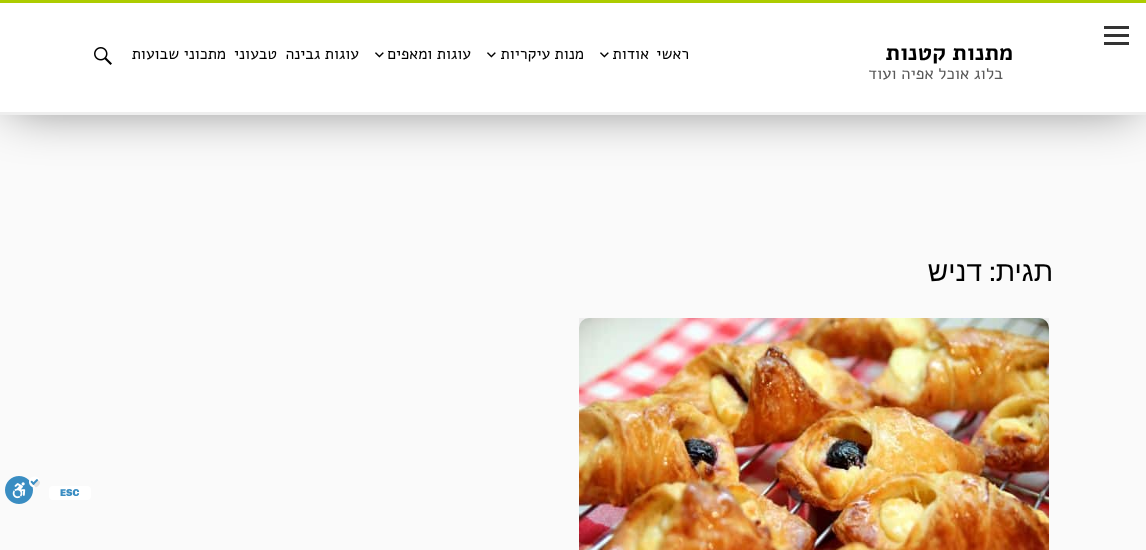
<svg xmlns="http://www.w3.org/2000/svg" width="1146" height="550">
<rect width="100%" height="100%" fill="#fafafa"/>
<rect x="10" y="12" width="1126" height="95" fill="#00000087" filter="blur(25.5px)"/>
<rect y="3" width="1146" height="109" fill="#fff"/>
<rect x="1104" y="26" width="25" height="3" fill="#333"/>
<rect x="1104" y="34" width="25" height="3" fill="#333"/>
<rect x="1104" y="42" width="25" height="3" fill="#333"/>
<rect width="1146" height="3" fill="#adcc00"/>
<rect y="112" width="1146" height="3" fill="#eee"/>
<text x="1013" y="60" style="font-family:Alef;font-size:22.75px;font-weight:bold;direction:rtl;fill:#000">מתנות קטנות</text>
<text x="1003" y="79" style="font-family:Alef;font-size:16.5px;direction:rtl;fill:#595959">בלוג אוכל אפיה ועוד</text>
<text x="689" y="59" style="font-family:Alef;font-size:15.75px;direction:rtl;fill:#000">ראשי</text>
<text x="649" y="59" style="font-family:Alef;font-size:15.75px;direction:rtl;fill:#000">אודות</text>
<image x="600" y="52" width="9" height="6" href="media/1.png"/>
<text x="584" y="59" style="font-family:Alef;font-size:15.75px;direction:rtl;fill:#000">מנות עיקריות</text>
<image x="487" y="52" width="9" height="6" href="media/1.png"/>
<text x="471" y="59" style="font-family:Alef;font-size:15.75px;direction:rtl;fill:#000">עוגות ומאפים</text>
<image x="375" y="52" width="9" height="6" href="media/1.png"/>
<text x="359" y="59" style="font-family:Alef;font-size:15.75px;direction:rtl;fill:#000">עוגות גבינה</text>
<text x="277" y="59" style="font-family:Alef;font-size:15.75px;direction:rtl;fill:#000">טבעוני</text>
<text x="226" y="59" style="font-family:Alef;font-size:15.75px;direction:rtl;fill:#000">מתכוני שבועות</text>
<image x="94" y="47" width="18" height="18" href="media/2.png"/>
<text x="1053" y="281" style="font-family:Liberation Sans;font-size:28px;direction:rtl;fill:#000">תגית</text>
<text x="996" y="281" style="font-family:Chivo;font-size:28px;direction:rtl;fill:#000">:</text>
<text x="982" y="281" style="font-family:Liberation Sans;font-size:28px;direction:rtl;fill:#000">דניש</text>
<rect x="579" y="318" width="470" height="10" fill="#ededed"/>
<image x="579" y="318" width="470" height="232" href="media/3.png"/>
<rect x="49" y="486" width="42" height="14" rx="4" fill="#fff"/>
<text x="60" y="496" style="font-family:Chivo;font-size:10px;font-weight:900;fill:#3a8dc2">ESC</text>
<image x="5" y="476" width="35" height="28" href="media/4.png"/>
</svg>
